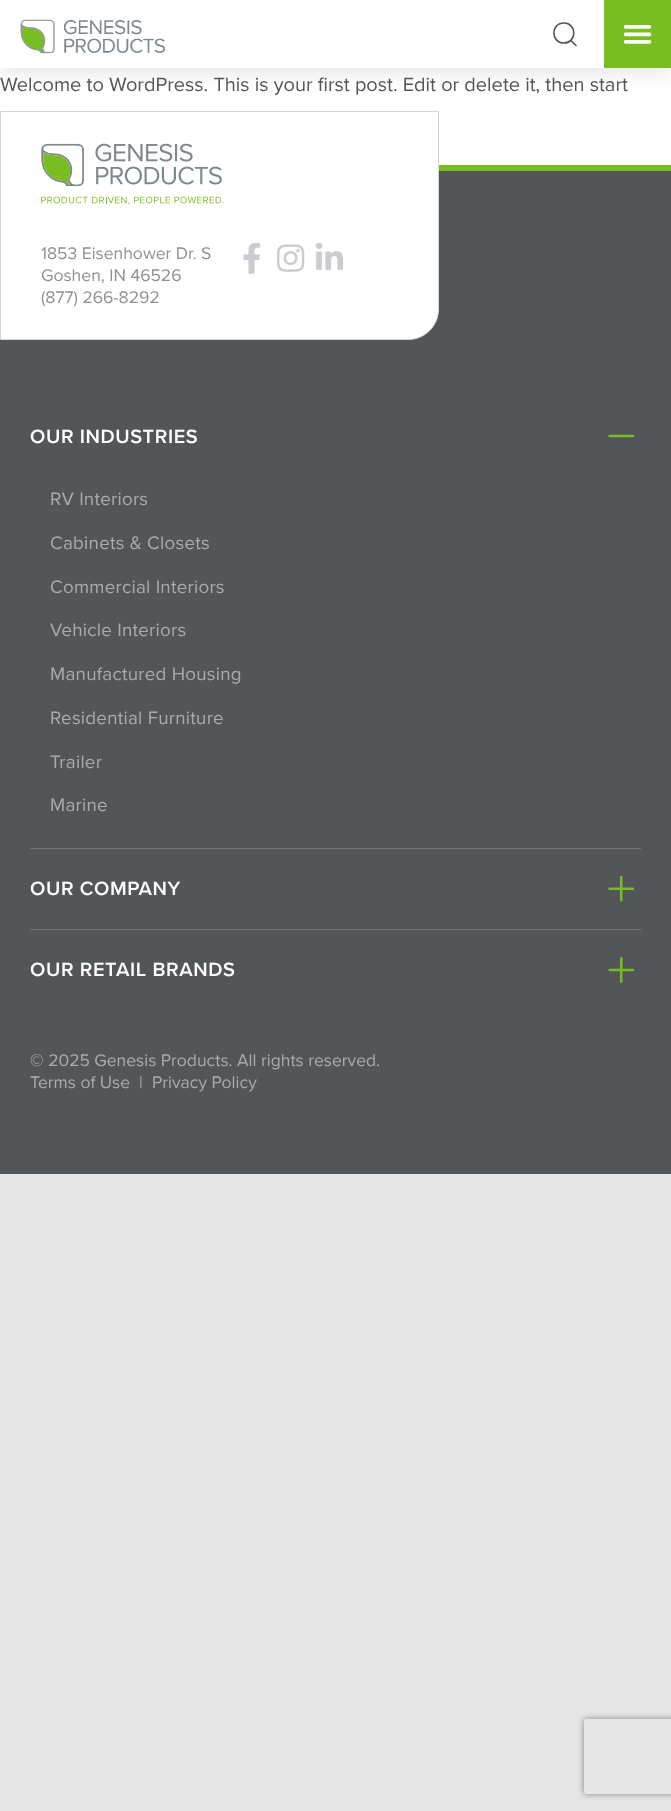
<svg xmlns="http://www.w3.org/2000/svg" width="671" height="1811">
<defs>
<clipPath id="clip1"><path d="M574 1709h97v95h-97zm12.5 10h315c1.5 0 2.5 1 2.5 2.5v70c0 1.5-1 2.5-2.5 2.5h-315c-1.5 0-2.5-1-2.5-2.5v-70c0-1.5 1-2.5 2.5-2.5z" clip-rule="evenodd"/></clipPath>
</defs>
<rect width="100%" height="100%" fill="#e5e5e5"/>
<rect y="68" width="671" height="97" fill="#fff"/>
<rect y="5" width="671" height="68" fill="#0000001a" filter="blur(9.5px)"/>
<rect width="604" height="68" fill="#fff"/>
<image x="20" y="19" width="146" height="35" href="media/1.png"/>
<path d="M564 43c13 0 13-20 0-20c-13.5 0-13.5 20 0 20zm12 2.5l-5-5" fill="none" stroke="#535659" stroke-width="1.6" stroke-linecap="round" stroke-linejoin="round"/>
<rect x="604" width="67" height="68" fill="#78be21"/>
<image x="623" y="25" width="29" height="19" href="media/2.png"/>
<text x="0" y="91" style="font-family:Proxima Nova;font-size:20px;fill:#535659">Welcome to WordPress. This is your first post. Edit or delete it, then start</text>
<rect y="171" width="671" height="1003" fill="#535659"/>
<rect x="439" y="165" width="232" height="6" fill="#78be21"/>
<path d="M.5 111.5h438v197.5c0 17-13.5 30.5-30.5 30.5h-407.5z" fill="#fff" stroke="#d4d5da"/>
<image x="41" y="143" width="183" height="62" href="media/3.png"/>
<text x="41" y="259" style="font-family:Proxima Nova;font-size:17.5px;fill:#909194">1853 Eisenhower Dr. S</text>
<text x="41" y="281" style="font-family:Proxima Nova;font-size:17.5px;fill:#909194">Goshen, IN 46526</text>
<text x="41" y="303" style="font-family:Proxima Nova;font-size:17.5px;fill:#909194">(877) 266-8292</text>
<image x="243" y="243" width="18" height="31" href="media/4.png"/>
<image x="277" y="244" width="28" height="28" href="media/5.png"/>
<image x="315" y="243" width="28" height="27" href="media/6.png"/>
<rect x="30" y="848" width="611" height="1" fill="#717377"/>
<text x="30" y="443" style="font-family:Proxima Nova;font-size:20px;font-weight:600;letter-spacing:0.6px;fill:#fff">OUR INDUSTRIES</text>
<path d="M609.5 436h23.5" fill="none" stroke="#78be21" stroke-width="2.5" stroke-linecap="round" stroke-linejoin="round"/>
<text x="50" y="505" style="font-family:Proxima Nova;font-size:18.75px;letter-spacing:0.25px;fill:#a9abac">RV Interiors</text>
<text x="50" y="549" style="font-family:Proxima Nova;font-size:18.75px;letter-spacing:0.25px;fill:#a9abac">Cabinets &amp; Closets</text>
<text x="50" y="593" style="font-family:Proxima Nova;font-size:18.75px;letter-spacing:0.25px;fill:#a9abac">Commercial Interiors</text>
<text x="50" y="636" style="font-family:Proxima Nova;font-size:18.75px;letter-spacing:0.25px;fill:#a9abac">Vehicle Interiors</text>
<text x="50" y="680" style="font-family:Proxima Nova;font-size:18.75px;letter-spacing:0.25px;fill:#a9abac">Manufactured Housing</text>
<text x="50" y="724" style="font-family:Proxima Nova;font-size:18.75px;letter-spacing:0.25px;fill:#a9abac">Residential Furniture</text>
<text x="50" y="768" style="font-family:Proxima Nova;font-size:18.75px;letter-spacing:0.25px;fill:#a9abac">Trailer</text>
<text x="50" y="811" style="font-family:Proxima Nova;font-size:18.75px;letter-spacing:0.25px;fill:#a9abac">Marine</text>
<rect x="30" y="929" width="611" height="1" fill="#717377"/>
<text x="30" y="895" style="font-family:Proxima Nova;font-size:20px;font-weight:600;letter-spacing:0.6px;fill:#fff">OUR COMPANY</text>
<image x="608" y="875" width="27" height="27" href="media/7.png"/>
<text x="30" y="976" style="font-family:Proxima Nova;font-size:20px;font-weight:600;letter-spacing:0.6px;fill:#fff">OUR RETAIL BRANDS</text>
<image x="608" y="957" width="27" height="26" href="media/8.png"/>
<text x="30" y="1066" style="font-family:Proxima Nova;font-size:17.5px;fill:#a9abac">© 2025 Genesis Products. All rights reserved.</text>
<text x="30" y="1088" style="font-family:Proxima Nova;font-size:17.5px;fill:#a9abac">Terms of Use</text>
<text x="139" y="1088" style="font-family:Proxima Nova;font-size:17.5px;fill:#a9abac">|</text>
<text x="152" y="1088" style="font-family:Proxima Nova;font-size:17.5px;fill:#a9abac">Privacy Policy</text>
<g clip-path="url(#clip1)">
<rect x="584" y="1719" width="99" height="75" rx="2.5" fill="#808080" filter="blur(3px)"/>
</g>
</svg>
